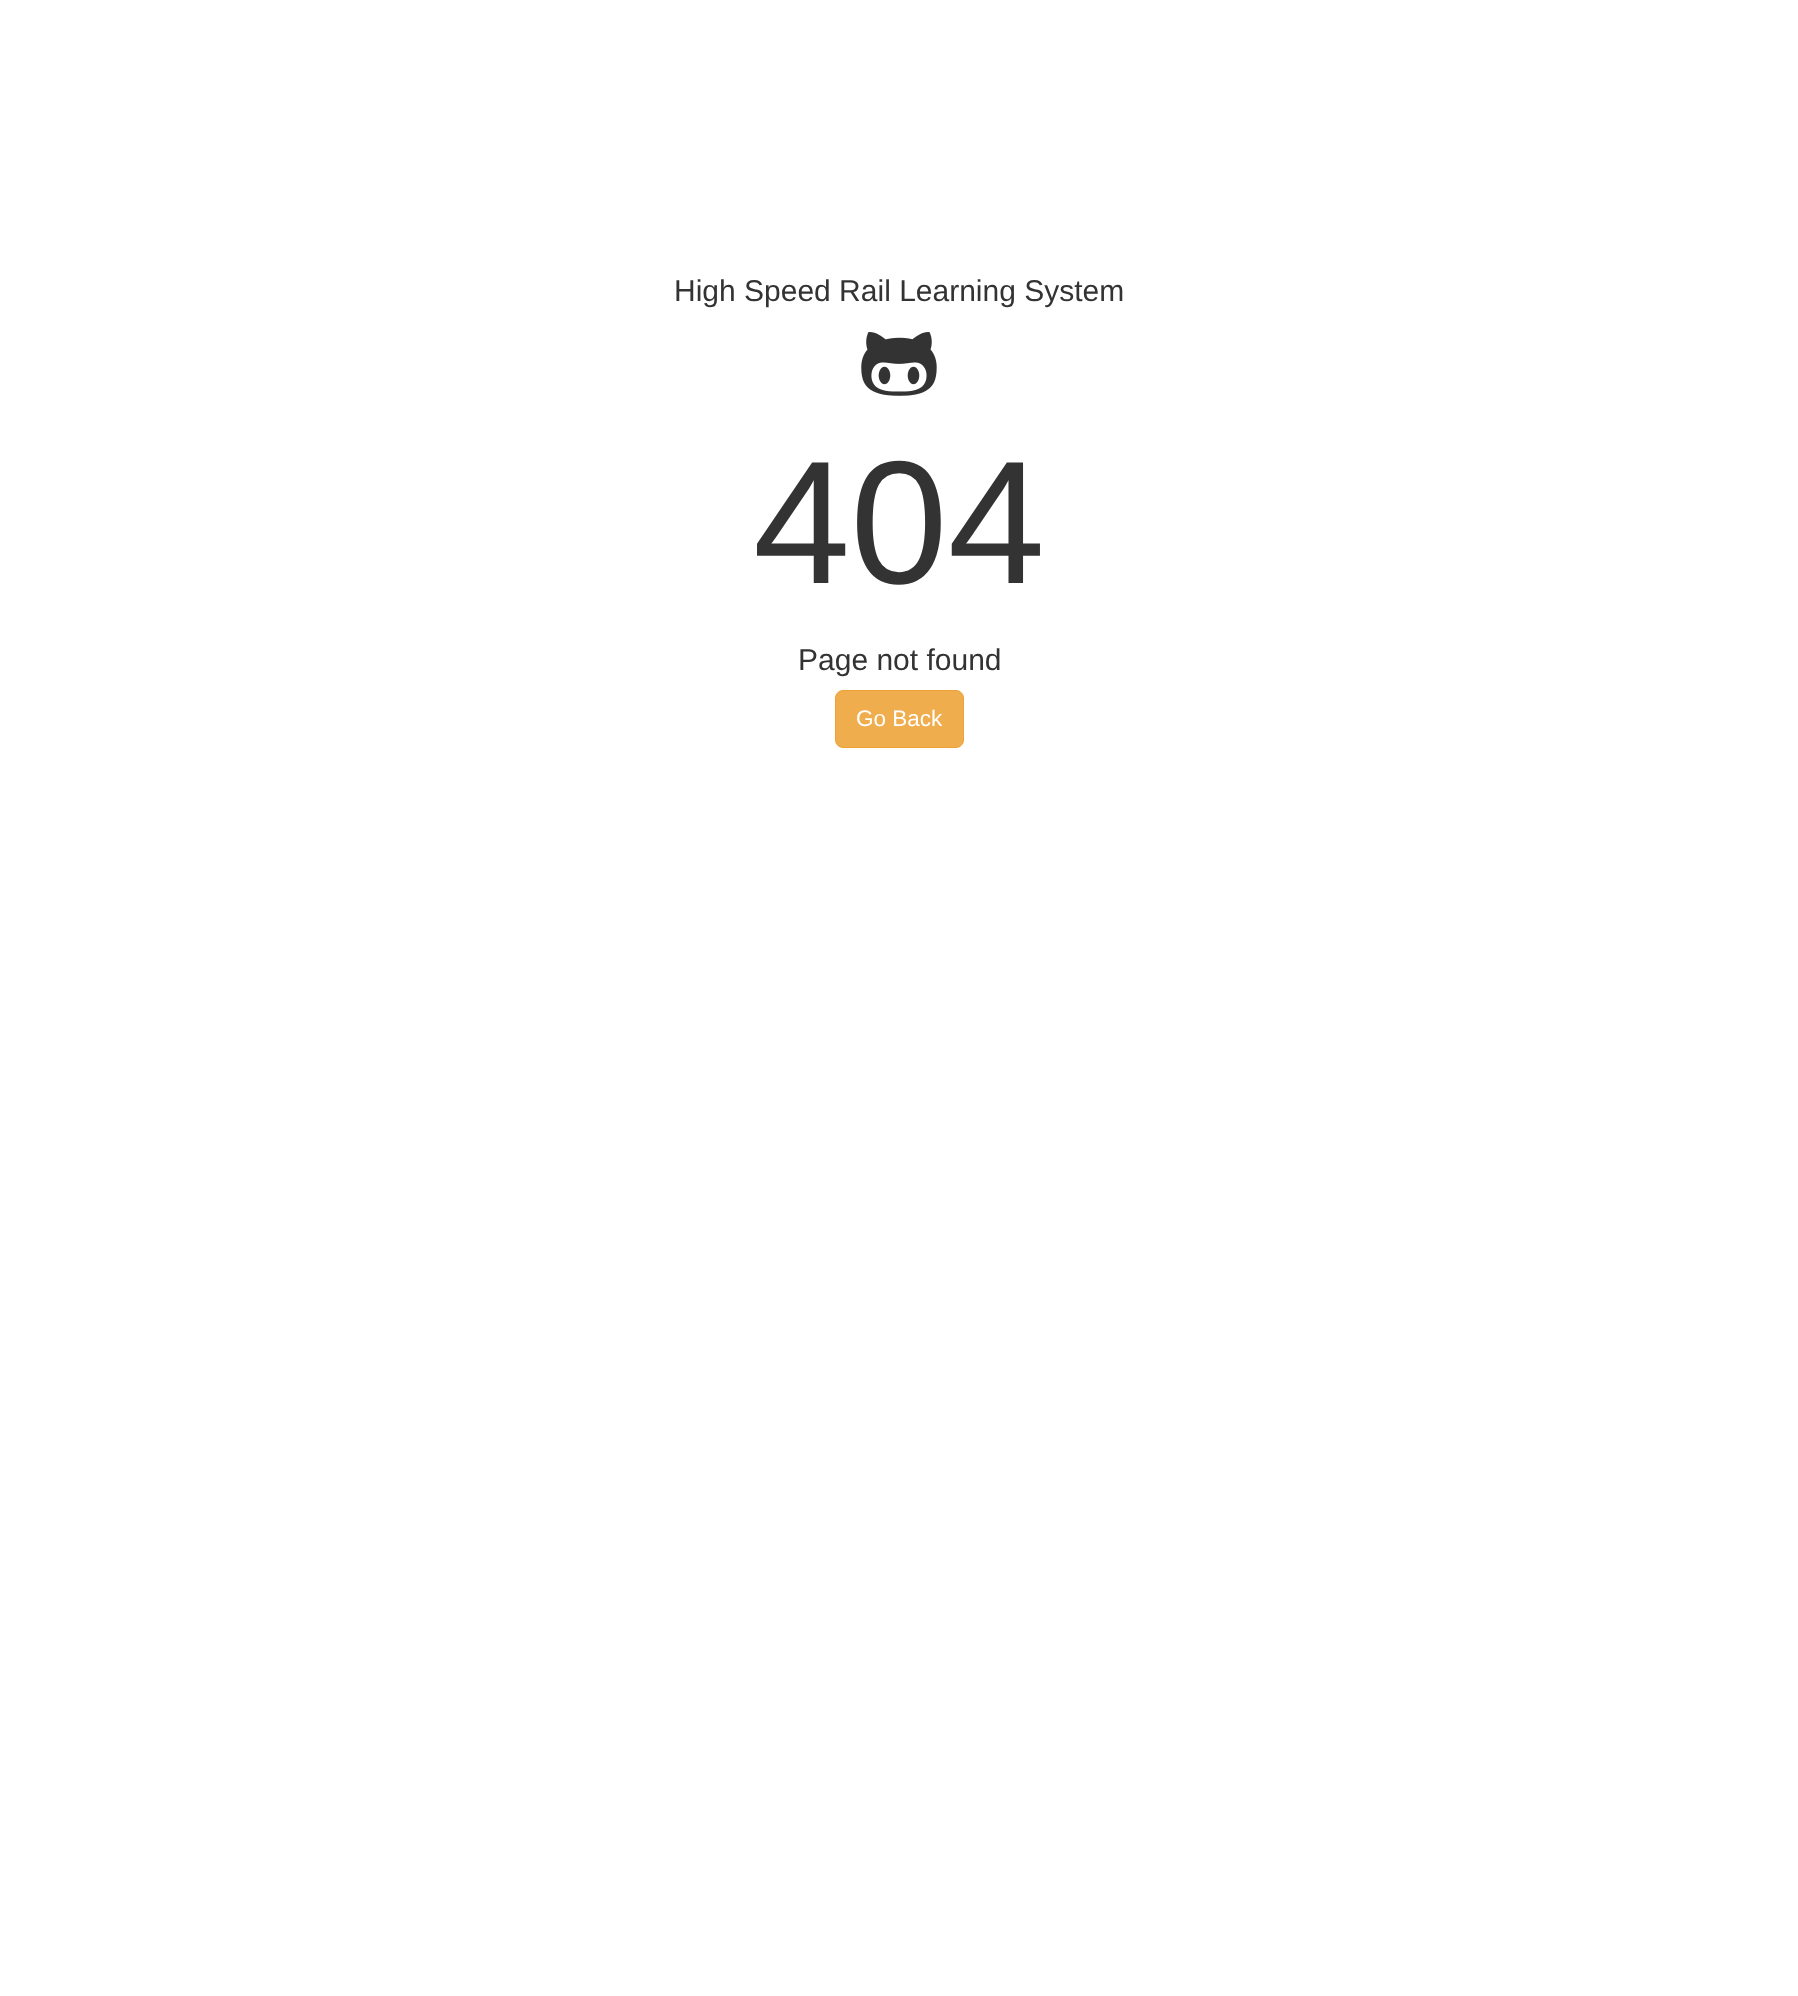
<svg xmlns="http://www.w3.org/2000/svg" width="1798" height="1996">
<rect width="100%" height="100%" fill="#fff"/>
<text x="674" y="301" style="font-family:Liberation Sans;font-size:30px;fill:#333">High Speed Rail Learning System</text>
<image x="861" y="332" width="76" height="64" href="media/1.png"/>
<text x="753" y="583" style="font-family:Liberation Sans;font-size:175px;fill:#333">404</text>
<text x="798" y="670" style="font-family:Liberation Sans;font-size:30px;fill:#333">Page not found</text>
<rect x="835.5" y="690.5" width="128" height="57" rx="7.5" fill="#f0ad4e" stroke="#eea236"/>
<text x="856" y="726" style="font-family:Liberation Sans;font-size:22.5px;fill:#fff">Go Back</text>
</svg>
